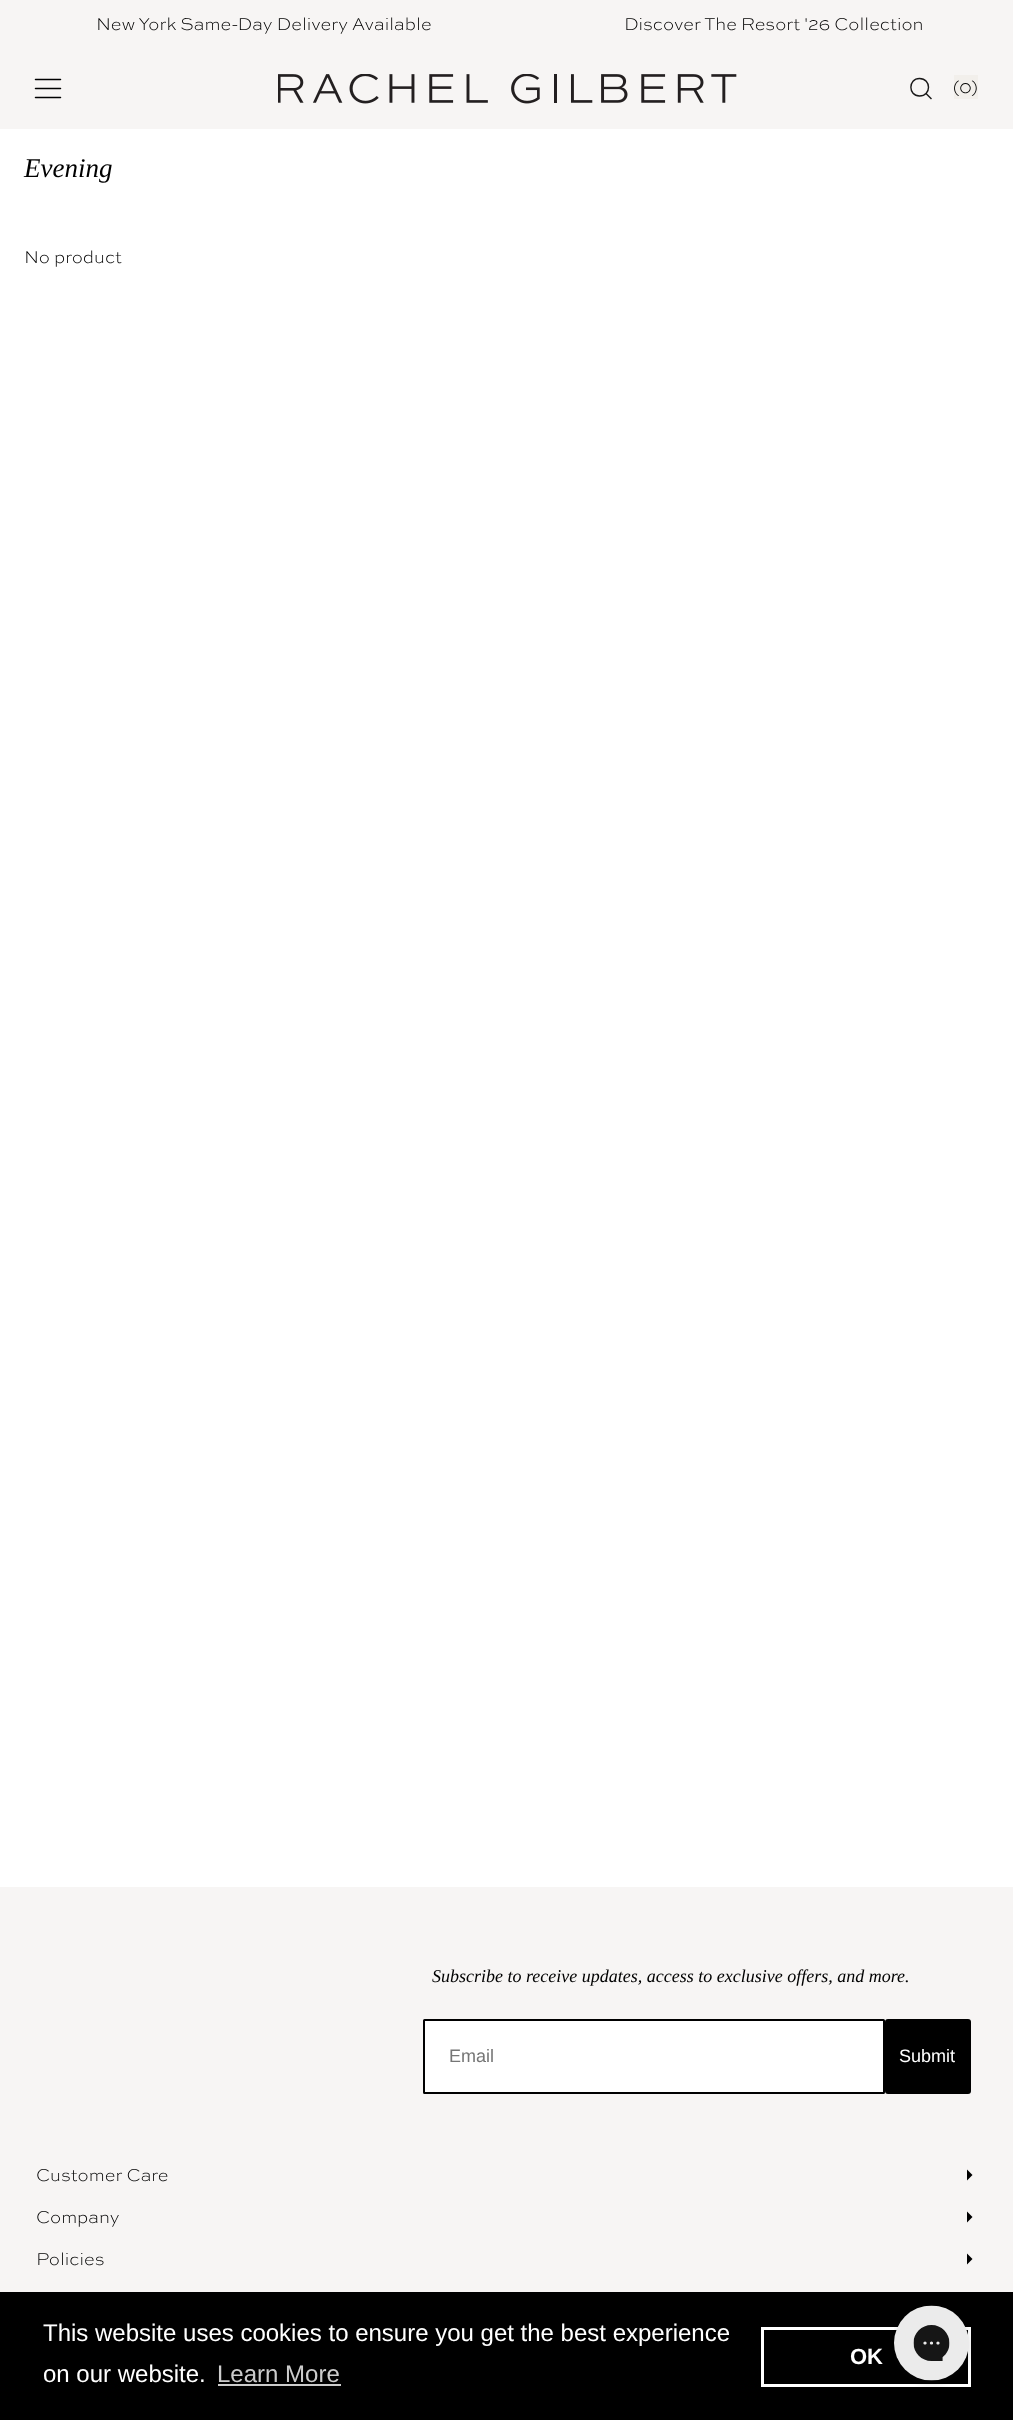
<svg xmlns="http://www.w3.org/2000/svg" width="1013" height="2420">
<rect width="100%" height="100%" fill="#fff"/>
<rect width="1013" height="129" fill="#f7f5f4"/>
<text x="96" y="30" style="font-family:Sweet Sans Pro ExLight;font-size:18px;font-weight:300;fill:#000">New York Same-Day Delivery Available</text>
<text x="624" y="30" style="font-family:Sweet Sans Pro ExLight;font-size:18px;font-weight:300;fill:#000">Discover The Resort '26 Collection</text>
<path d="M35.5 88.5h25m-25-9h25m-25 18h25" fill="none" stroke="#000" stroke-width="1.5" stroke-linecap="round" stroke-linejoin="round"/>
<image x="278" y="74" width="459" height="30" href="media/1.png"/>
<path d="M919.5 96c12 0 12-17.5 0-17.5c-11.5 0-11.5 17.5 0 17.5zm6.5-2.5l5 5" fill="none" stroke="#1a1919" stroke-width="1.4" stroke-linecap="square" stroke-linejoin="bevel"/>
<rect x="954" y="75" width="24" height="24" fill="#f2efeb"/>
<text x="953" y="93" style="font-family:Sweet Sans Pro ExLight;font-size:18px;font-weight:300;fill:#000">(0)</text>
<text x="24" y="177" style="font-family:Liberation Serif;font-size:27px;font-style:italic;fill:#000">Evening</text>
<text x="24" y="263" style="font-family:Sweet Sans Pro ExLight;font-size:18px;font-weight:300;fill:#000">No product</text>
<rect y="1887" width="1013" height="405" fill="#f7f5f4"/>
<text x="432" y="1982" style="font-family:Liberation Serif;font-size:18px;font-style:italic;fill:#000">Subscribe to receive updates, access to exclusive offers, and more.</text>
<rect x="424" y="2020" width="460" height="73" rx="0.5" fill="#fff" stroke="#000" stroke-width="2"/>
<text x="449" y="2062" style="font-family:Liberation Sans;font-size:18px;fill:#767676">Email</text>
<rect x="885" y="2019" width="86" height="75" rx="3" fill="#000"/>
<text x="899" y="2062" style="font-family:Liberation Sans;font-size:18px;fill:#fff">Submit</text>
<text x="36" y="2181" style="font-family:Sweet Sans Pro ExLight;font-size:18px;font-weight:300;fill:#000">Customer Care</text>
<path d="M967 2169.5l5.5 5.5l-5.5 5.5" fill="#000"/>
<text x="36" y="2223" style="font-family:Sweet Sans Pro ExLight;font-size:18px;font-weight:300;fill:#000">Company</text>
<path d="M967 2211.5l5.5 5.5l-5.5 5.5" fill="#000"/>
<text x="36" y="2265" style="font-family:Sweet Sans Pro ExLight;font-size:18px;font-weight:300;fill:#000">Policies</text>
<path d="M967 2253.5l5.5 5.5l-5.5 5.5" fill="#000"/>
<rect y="2292" width="1013" height="128" fill="#000"/>
<text x="43" y="2341" style="font-family:Liberation Sans;font-size:24px;fill:#fff">This website uses cookies to ensure you get the best experience</text>
<text x="43" y="2382" style="font-family:Liberation Sans;font-size:24px;fill:#fff">on our website.</text>
<text x="217" y="2382" style="font-family:Liberation Sans;font-size:24px;fill:#ccc">Learn More</text>
<rect x="218" y="2384" width="123" height="2" fill="#ccc"/>
<rect x="762.5" y="2328.5" width="207" height="57" fill="none" stroke="#fff" stroke-width="3"/>
<text x="850" y="2364" style="font-family:Liberation Sans;font-size:22px;font-weight:bold;fill:#fff">OK</text>
<image x="894" y="2305" width="77" height="82" href="media/2.png"/>
</svg>
